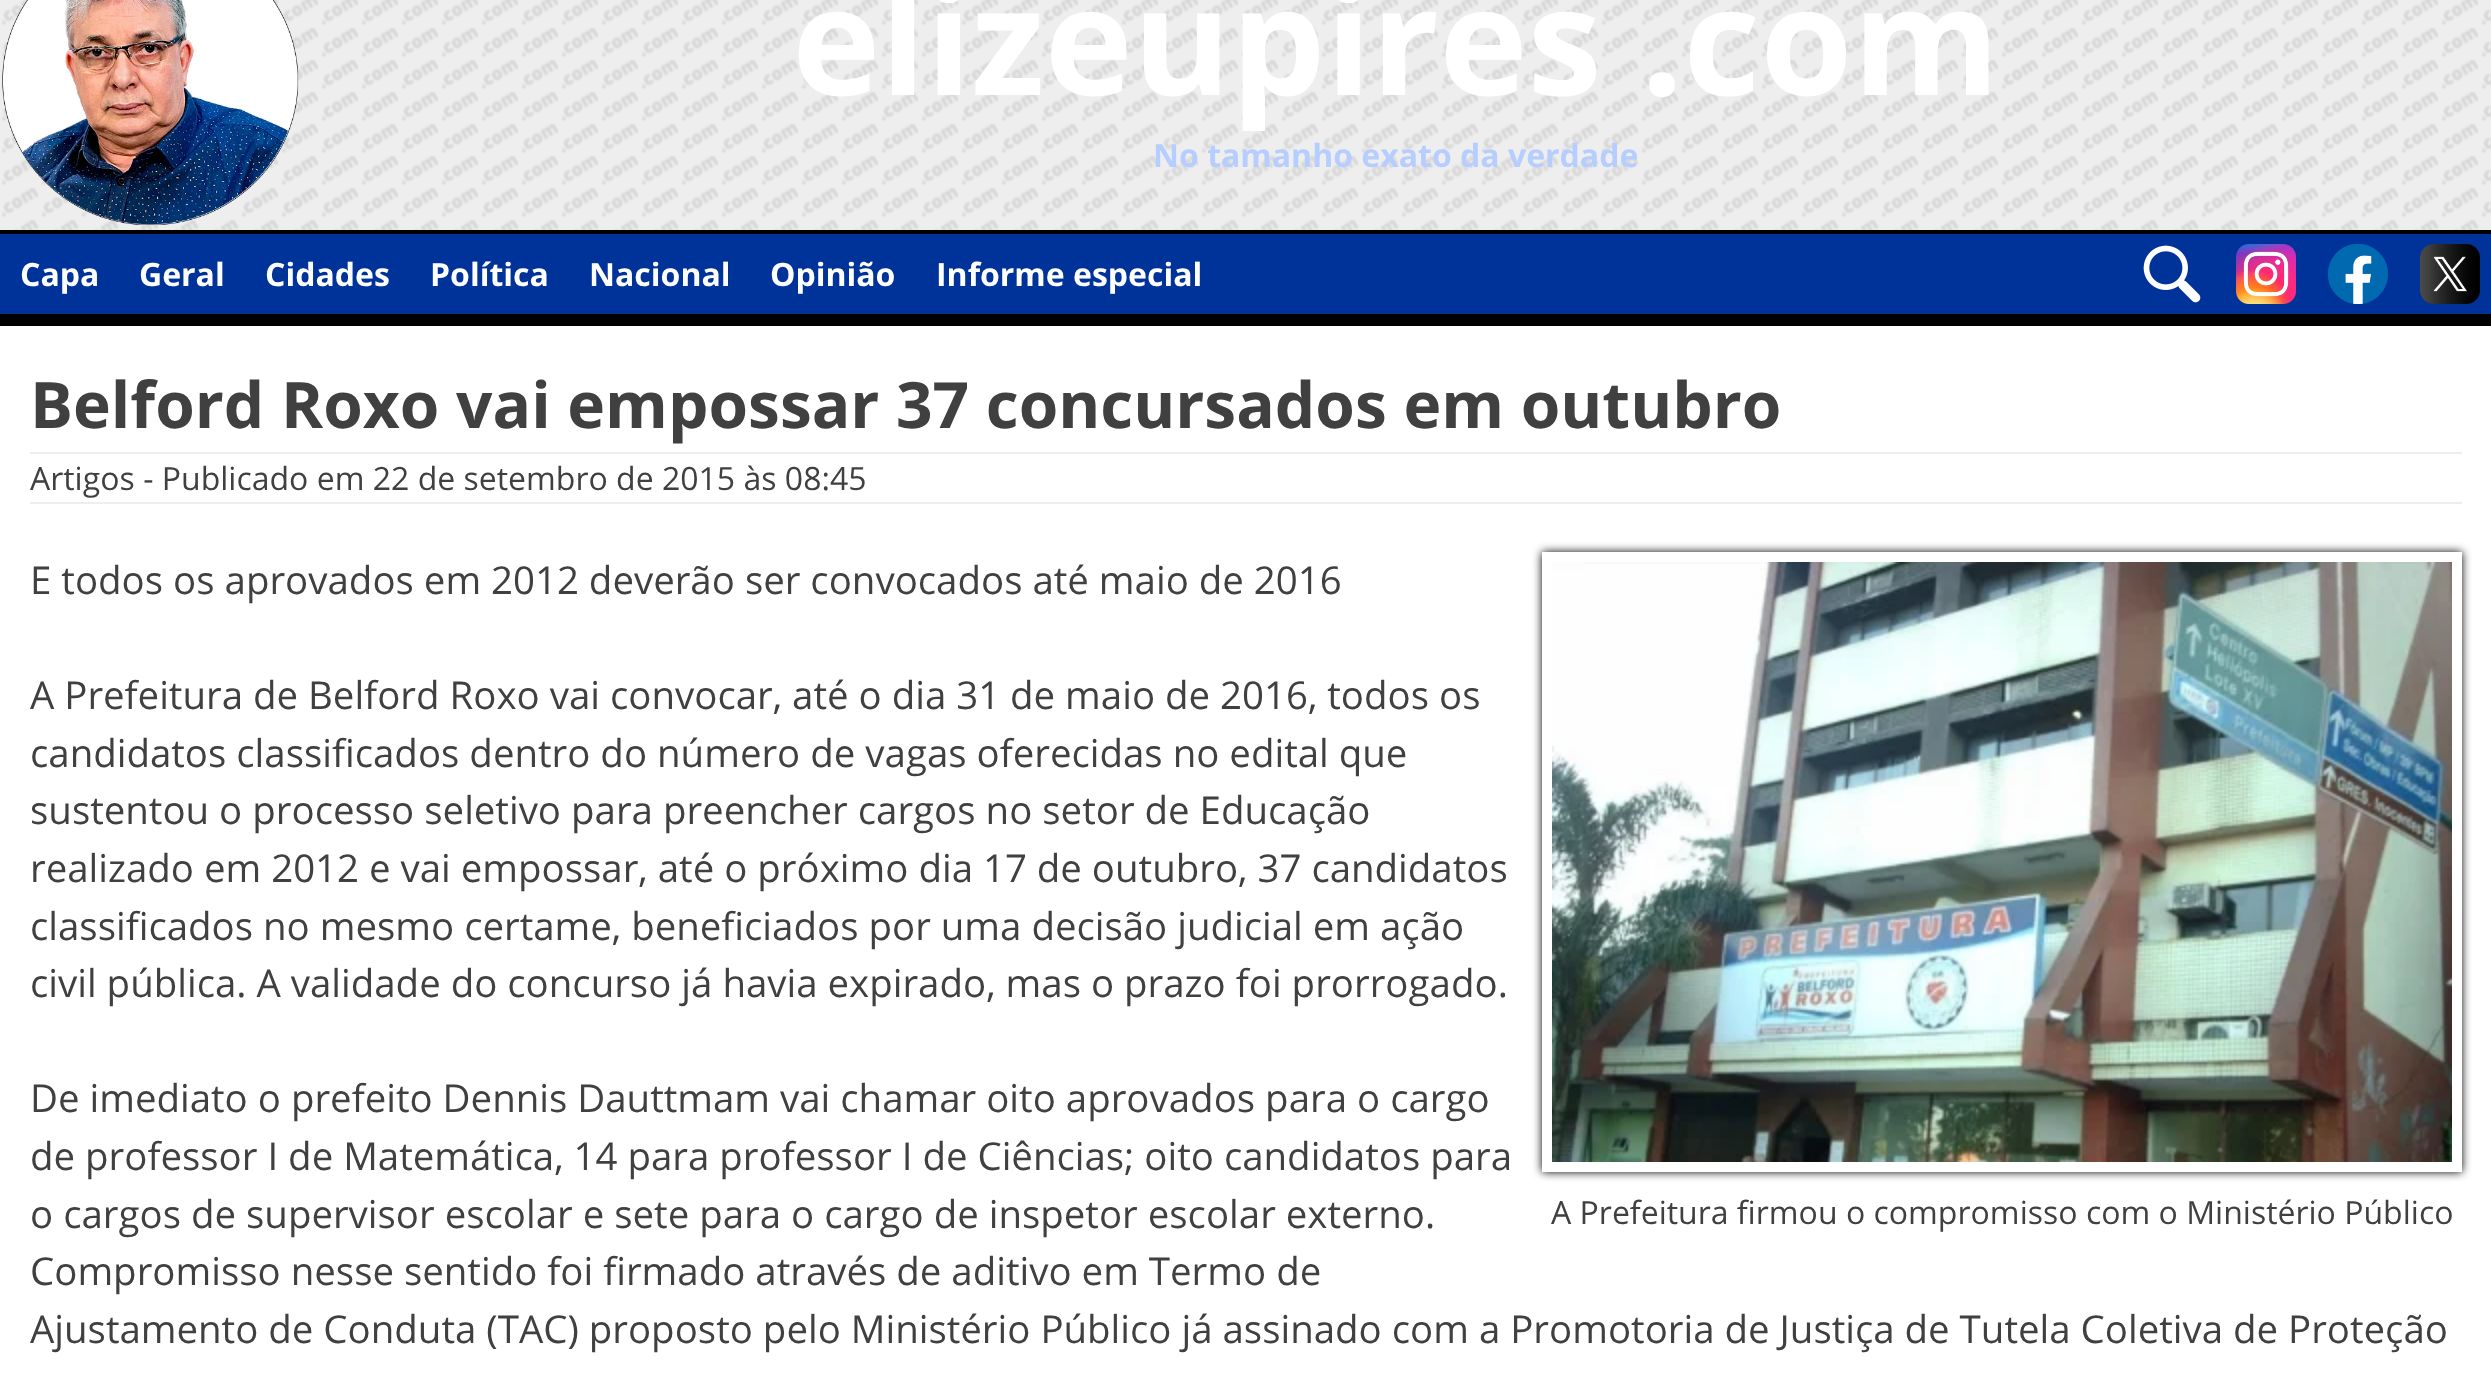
<svg xmlns="http://www.w3.org/2000/svg" width="2491" height="1392">
<defs>
<clipPath id="clip1"><path d="M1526 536h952v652h-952zm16 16h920v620h-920z" clip-rule="evenodd"/></clipPath>
</defs>
<rect width="100%" height="100%" fill="#eee"/>
<image x="2" y="0" width="2489" height="230" href="media/1.png"/>
<rect y="314" width="2491" height="12" fill="#000"/>
<image x="2" y="0" width="297" height="225" href="media/2.png"/>
<text x="792" y="95" style="font-family:Open Sans;font-size:149.5px;font-weight:bold;fill:#fff">elizeupires .com</text>
<text x="1153" y="167" style="font-family:Open Sans;font-size:32px;font-weight:bold;fill:#b6cdff">No tamanho exato da verdade</text>
<rect y="234" width="2491" height="80" fill="#039"/>
<rect y="230" width="2491" height="4" fill="#000"/>
<image x="2143" y="245" width="58" height="58" href="media/3.png"/>
<image x="2236" y="244" width="60" height="60" href="media/4.png"/>
<image x="2328" y="244" width="60" height="60" href="media/5.png"/>
<image x="2420" y="244" width="60" height="60" href="media/6.png"/>
<text x="20" y="286" style="font-family:Open Sans;font-size:32px;font-weight:bold;fill:#fff">Capa</text>
<text x="139" y="286" style="font-family:Open Sans;font-size:32px;font-weight:bold;fill:#fff">Geral</text>
<text x="265" y="286" style="font-family:Open Sans;font-size:32px;font-weight:bold;fill:#fff">Cidades</text>
<text x="430" y="286" style="font-family:Open Sans;font-size:32px;font-weight:bold;fill:#fff">Política</text>
<text x="589" y="286" style="font-family:Open Sans;font-size:32px;font-weight:bold;fill:#fff">Nacional</text>
<text x="770" y="286" style="font-family:Open Sans;font-size:32px;font-weight:bold;fill:#fff">Opinião</text>
<text x="936" y="286" style="font-family:Open Sans;font-size:32px;font-weight:bold;fill:#fff">Informe especial</text>
<rect y="326" width="2491" height="1066" fill="#fff"/>
<text x="30" y="428" style="font-family:Open Sans;font-size:64px;font-weight:bold;fill:#404040">Belford Roxo vai empossar 37 concursados em outubro</text>
<rect x="30" y="452" width="2432" height="2" fill="#eee"/>
<rect x="30" y="502" width="2432" height="2" fill="#eee"/>
<text x="30" y="490" style="font-family:Open Sans;font-size:32px;fill:#404040">Artigos - Publicado em 22 de setembro de 2015 às 08:45</text>
<text x="30" y="594" style="font-family:Open Sans;font-size:38.4px;fill:#404040">E todos os aprovados em 2012 deverão ser convocados até maio de 2016</text>
<text x="30" y="709" style="font-family:Open Sans;font-size:38.4px;fill:#404040">A Prefeitura de Belford Roxo vai convocar, até o dia 31 de maio de 2016, todos os</text>
<text x="30" y="767" style="font-family:Open Sans;font-size:38.4px;fill:#404040">candidatos classificados dentro do número de vagas oferecidas no edital que</text>
<text x="30" y="824" style="font-family:Open Sans;font-size:38.4px;fill:#404040">sustentou o processo seletivo para preencher cargos no setor de Educação</text>
<text x="30" y="882" style="font-family:Open Sans;font-size:38.4px;fill:#404040">realizado em 2012 e vai empossar, até o próximo dia 17 de outubro, 37 candidatos</text>
<text x="30" y="940" style="font-family:Open Sans;font-size:38.4px;fill:#404040">classificados no mesmo certame, beneficiados por uma decisão judicial em ação</text>
<text x="30" y="997" style="font-family:Open Sans;font-size:38.4px;fill:#404040">civil pública. A validade do concurso já havia expirado, mas o prazo foi prorrogado.</text>
<text x="30" y="1112" style="font-family:Open Sans;font-size:38.4px;fill:#404040">De imediato o prefeito Dennis Dauttmam vai chamar oito aprovados para o cargo</text>
<text x="30" y="1170" style="font-family:Open Sans;font-size:38.4px;fill:#404040">de professor I de Matemática, 14 para professor I de Ciências; oito candidatos para</text>
<text x="30" y="1228" style="font-family:Open Sans;font-size:38.4px;fill:#404040">o cargos de supervisor escolar e sete para o cargo de inspetor escolar externo.</text>
<text x="30" y="1285" style="font-family:Open Sans;font-size:38.4px;fill:#404040">Compromisso nesse sentido foi firmado através de aditivo em Termo de</text>
<text x="30" y="1343" style="font-family:Open Sans;font-size:38.4px;fill:#404040">Ajustamento de Conduta (TAC) proposto pelo Ministério Público já assinado com a Promotoria de Justiça de Tutela Coletiva de Proteção</text>
<g clip-path="url(#clip1)">
<rect x="1542" y="552" width="920" height="620" fill="#000" filter="blur(5px)"/>
</g>
<image x="1552" y="562" width="900" height="600" href="media/7.png"/>
<text x="1551" y="1224" style="font-family:Open Sans;font-size:32px;fill:#404040">A Prefeitura firmou o compromisso com o Ministério Público</text>
</svg>
